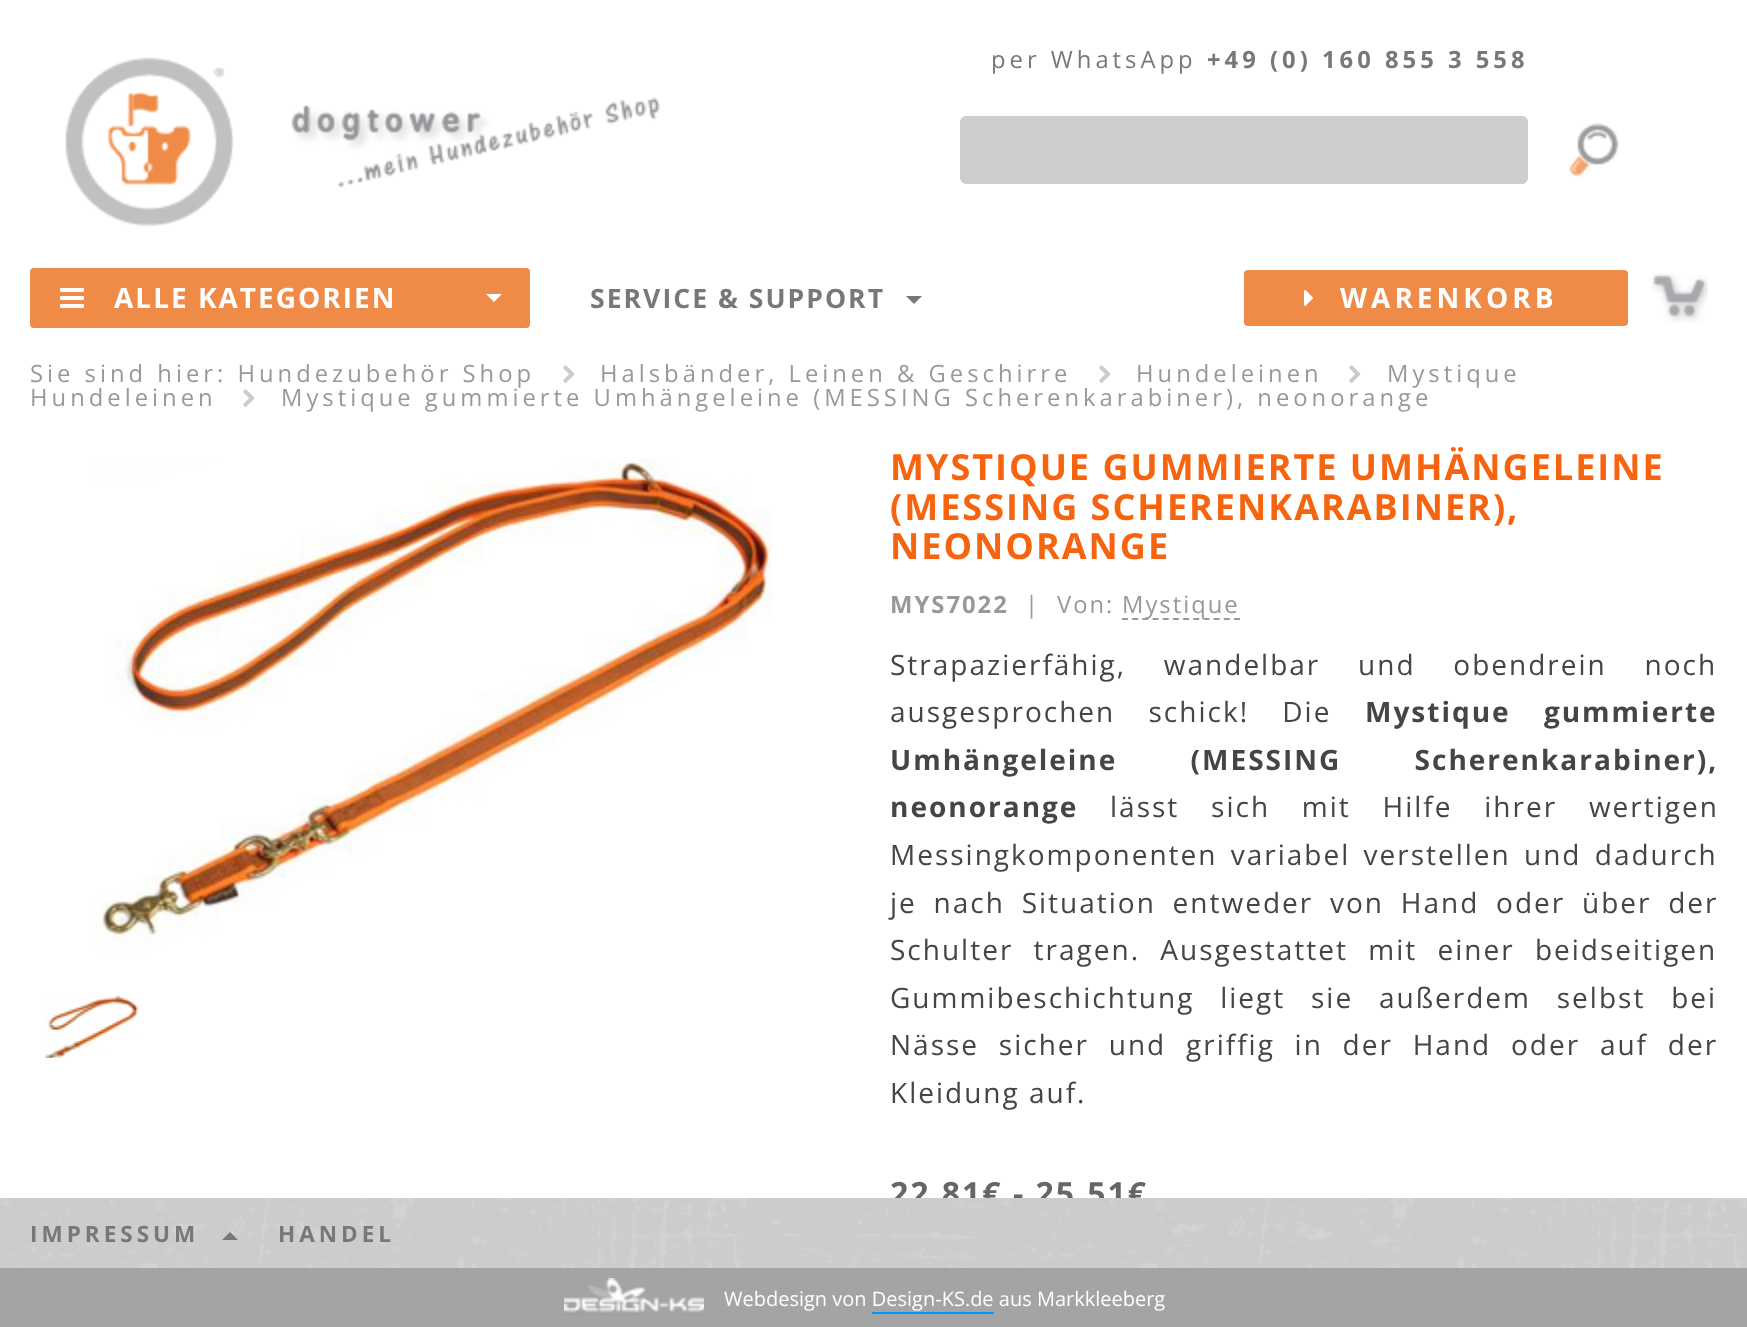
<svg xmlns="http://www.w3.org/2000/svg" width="1747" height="1327">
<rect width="100%" height="100%" fill="#fff"/>
<image x="65" y="57" width="169" height="170" href="media/1.png"/>
<image x="291" y="97" width="370" height="91" href="media/2.png"/>
<text x="991" y="68" style="font-family:Open Sans;font-size:23.8px;letter-spacing:4px;fill:#787878">per WhatsApp</text>
<text x="1207" y="68" style="font-family:Open Sans;font-size:23.8px;font-weight:bold;letter-spacing:4px;fill:#787878">+49 (0) 160 855 3 558</text>
<rect x="960" y="116" width="568" height="68" rx="6" fill="#cecece"/>
<image x="1569" y="123" width="50" height="54" href="media/3.png"/>
<rect x="30" y="268" width="500" height="60" rx="4" fill="#ef8b46"/>
<image x="60" y="288" width="24" height="20" href="media/4.png"/>
<text x="114" y="308" style="font-family:Open Sans;font-size:28px;font-weight:bold;letter-spacing:2px;fill:#fefefe">ALLE KATEGORIEN</text>
<path d="M486 294h16l-8 8z" fill="#fefefe"/>
<text x="590" y="308" style="font-family:Open Sans;font-size:26.6px;font-weight:bold;letter-spacing:2px;fill:#787878">SERVICE &amp; SUPPORT</text>
<path d="M906 296h16l-8 8z" fill="#777"/>
<rect x="1244" y="270" width="384" height="56" rx="4" fill="#ef8b46"/>
<image x="1304" y="290" width="9" height="16" href="media/5.png"/>
<text x="1340" y="308" style="font-family:Open Sans;font-size:28px;font-weight:bold;letter-spacing:4px;fill:#fefefe">WARENKORB</text>
<image x="1651" y="273" width="57" height="50" href="media/6.png"/>
<text x="30" y="382" style="font-family:Open Sans;font-size:23.8px;letter-spacing:4px;fill:#999">Sie sind hier: Hundezubehör Shop</text>
<image x="563" y="365" width="12" height="18" href="media/7.png"/>
<text x="600" y="382" style="font-family:Open Sans;font-size:23.8px;letter-spacing:4px;fill:#999">Halsbänder, Leinen &amp; Geschirre</text>
<image x="1099" y="365" width="12" height="18" href="media/7.png"/>
<text x="1136" y="382" style="font-family:Open Sans;font-size:23.8px;letter-spacing:4px;fill:#999">Hundeleinen</text>
<image x="1349" y="365" width="12" height="18" href="media/7.png"/>
<text x="1387" y="382" style="font-family:Open Sans;font-size:23.8px;letter-spacing:4px;fill:#999">Mystique</text>
<text x="30" y="406" style="font-family:Open Sans;font-size:23.8px;letter-spacing:4px;fill:#999">Hundeleinen</text>
<image x="243" y="389" width="12" height="18" href="media/7.png"/>
<text x="281" y="406" style="font-family:Open Sans;font-size:23.8px;letter-spacing:4px;fill:#999">Mystique gummierte Umhängeleine (MESSING Scherenkarabiner), neonorange</text>
<image x="91" y="458" width="681" height="496" href="media/8.png"/>
<image x="44" y="995" width="95" height="63" href="media/9.png"/>
<text x="890" y="480" style="font-family:Open Sans;font-size:36px;font-weight:bold;letter-spacing:2px;fill:#f7640f">MYSTIQUE GUMMIERTE UMHÄNGELEINE</text>
<text x="890" y="520" style="font-family:Open Sans;font-size:36px;font-weight:bold;letter-spacing:2px;fill:#f7640f">(MESSING SCHERENKARABINER),</text>
<text x="890" y="559" style="font-family:Open Sans;font-size:36px;font-weight:bold;letter-spacing:2px;fill:#f7640f">NEONORANGE</text>
<text x="890" y="613" style="font-family:Open Sans;font-size:23.8px;font-weight:bold;letter-spacing:2px;fill:#999">MYS7022</text>
<text x="1025" y="613" style="font-family:Open Sans;font-size:23.8px;letter-spacing:2px;fill:#999">|</text>
<text x="1057" y="613" style="font-family:Open Sans;font-size:23.8px;letter-spacing:2px;fill:#999">Von:</text>
<path d="M1122 619h118" fill="none" stroke="#999" stroke-width="2" stroke-dasharray="6 4.18"/>
<text x="1122" y="613" style="font-family:Open Sans;font-size:23.8px;letter-spacing:2px;fill:#999">Mystique</text>
<text x="890" y="675" word-spacing="28.5" style="font-family:Open Sans;font-size:28px;letter-spacing:2px;fill:#454545">Strapazierfähig, wandelbar und obendrein noch</text>
<text x="890" y="722" word-spacing="24" style="font-family:Open Sans;font-size:28px;letter-spacing:2px;fill:#454545">ausgesprochen schick! Die</text>
<text x="1365" y="722" word-spacing="24" style="font-family:Open Sans;font-size:28px;font-weight:bold;letter-spacing:2px;fill:#454545">Mystique gummierte</text>
<text x="890" y="770" word-spacing="64" style="font-family:Open Sans;font-size:28px;font-weight:bold;letter-spacing:2px;fill:#454545">Umhängeleine (MESSING Scherenkarabiner),</text>
<text x="890" y="817" style="font-family:Open Sans;font-size:28px;font-weight:bold;letter-spacing:2px;fill:#454545">neonorange</text>
<text x="1110" y="817" word-spacing="22.5" style="font-family:Open Sans;font-size:28px;letter-spacing:2px;fill:#454545">lässt sich mit Hilfe ihrer wertigen</text>
<text x="890" y="865" word-spacing="4" style="font-family:Open Sans;font-size:28px;letter-spacing:2px;fill:#454545">Messingkomponenten variabel verstellen und dadurch</text>
<text x="890" y="913" word-spacing="7.5" style="font-family:Open Sans;font-size:28px;letter-spacing:2px;fill:#454545">je nach Situation entweder von Hand oder über der</text>
<text x="890" y="960" word-spacing="11" style="font-family:Open Sans;font-size:28px;letter-spacing:2px;fill:#454545">Schulter tragen. Ausgestattet mit einer beidseitigen</text>
<text x="890" y="1008" word-spacing="16.5" style="font-family:Open Sans;font-size:28px;letter-spacing:2px;fill:#454545">Gummibeschichtung liegt sie außerdem selbst bei</text>
<text x="890" y="1055" word-spacing="10.5" style="font-family:Open Sans;font-size:28px;letter-spacing:2px;fill:#454545">Nässe sicher und griffig in der Hand oder auf der</text>
<text x="890" y="1103" style="font-family:Open Sans;font-size:28px;letter-spacing:2px;fill:#454545">Kleidung auf.</text>
<text x="890" y="1205" style="font-family:Open Sans;font-size:32px;font-weight:bold;letter-spacing:2px;fill:#666">22,81€ - 25,51€</text>
<rect y="1198" width="1747" height="70" fill="#ccc"/>
<image x="0" y="1198" width="1747" height="70" href="media/10.png"/>
<text x="30" y="1242" style="font-family:Open Sans;font-size:22.5px;font-weight:bold;letter-spacing:4px;fill:#787878">IMPRESSUM</text>
<path d="M238 1240h-16l8-8z" fill="#787878"/>
<text x="278" y="1242" style="font-family:Open Sans;font-size:22.5px;font-weight:bold;letter-spacing:4px;fill:#787878">HANDEL</text>
<rect y="1268" width="1747" height="59" fill="#a4a4a4"/>
<image x="564" y="1278" width="140" height="38" href="media/11.png"/>
<text x="724" y="1306" style="font-family:Open Sans;font-size:20px;fill:#fefefe">Webdesign von Design-KS.de aus Markkleeberg</text>
<rect x="872" y="1312" width="122" height="2" fill="#09f"/>
</svg>
